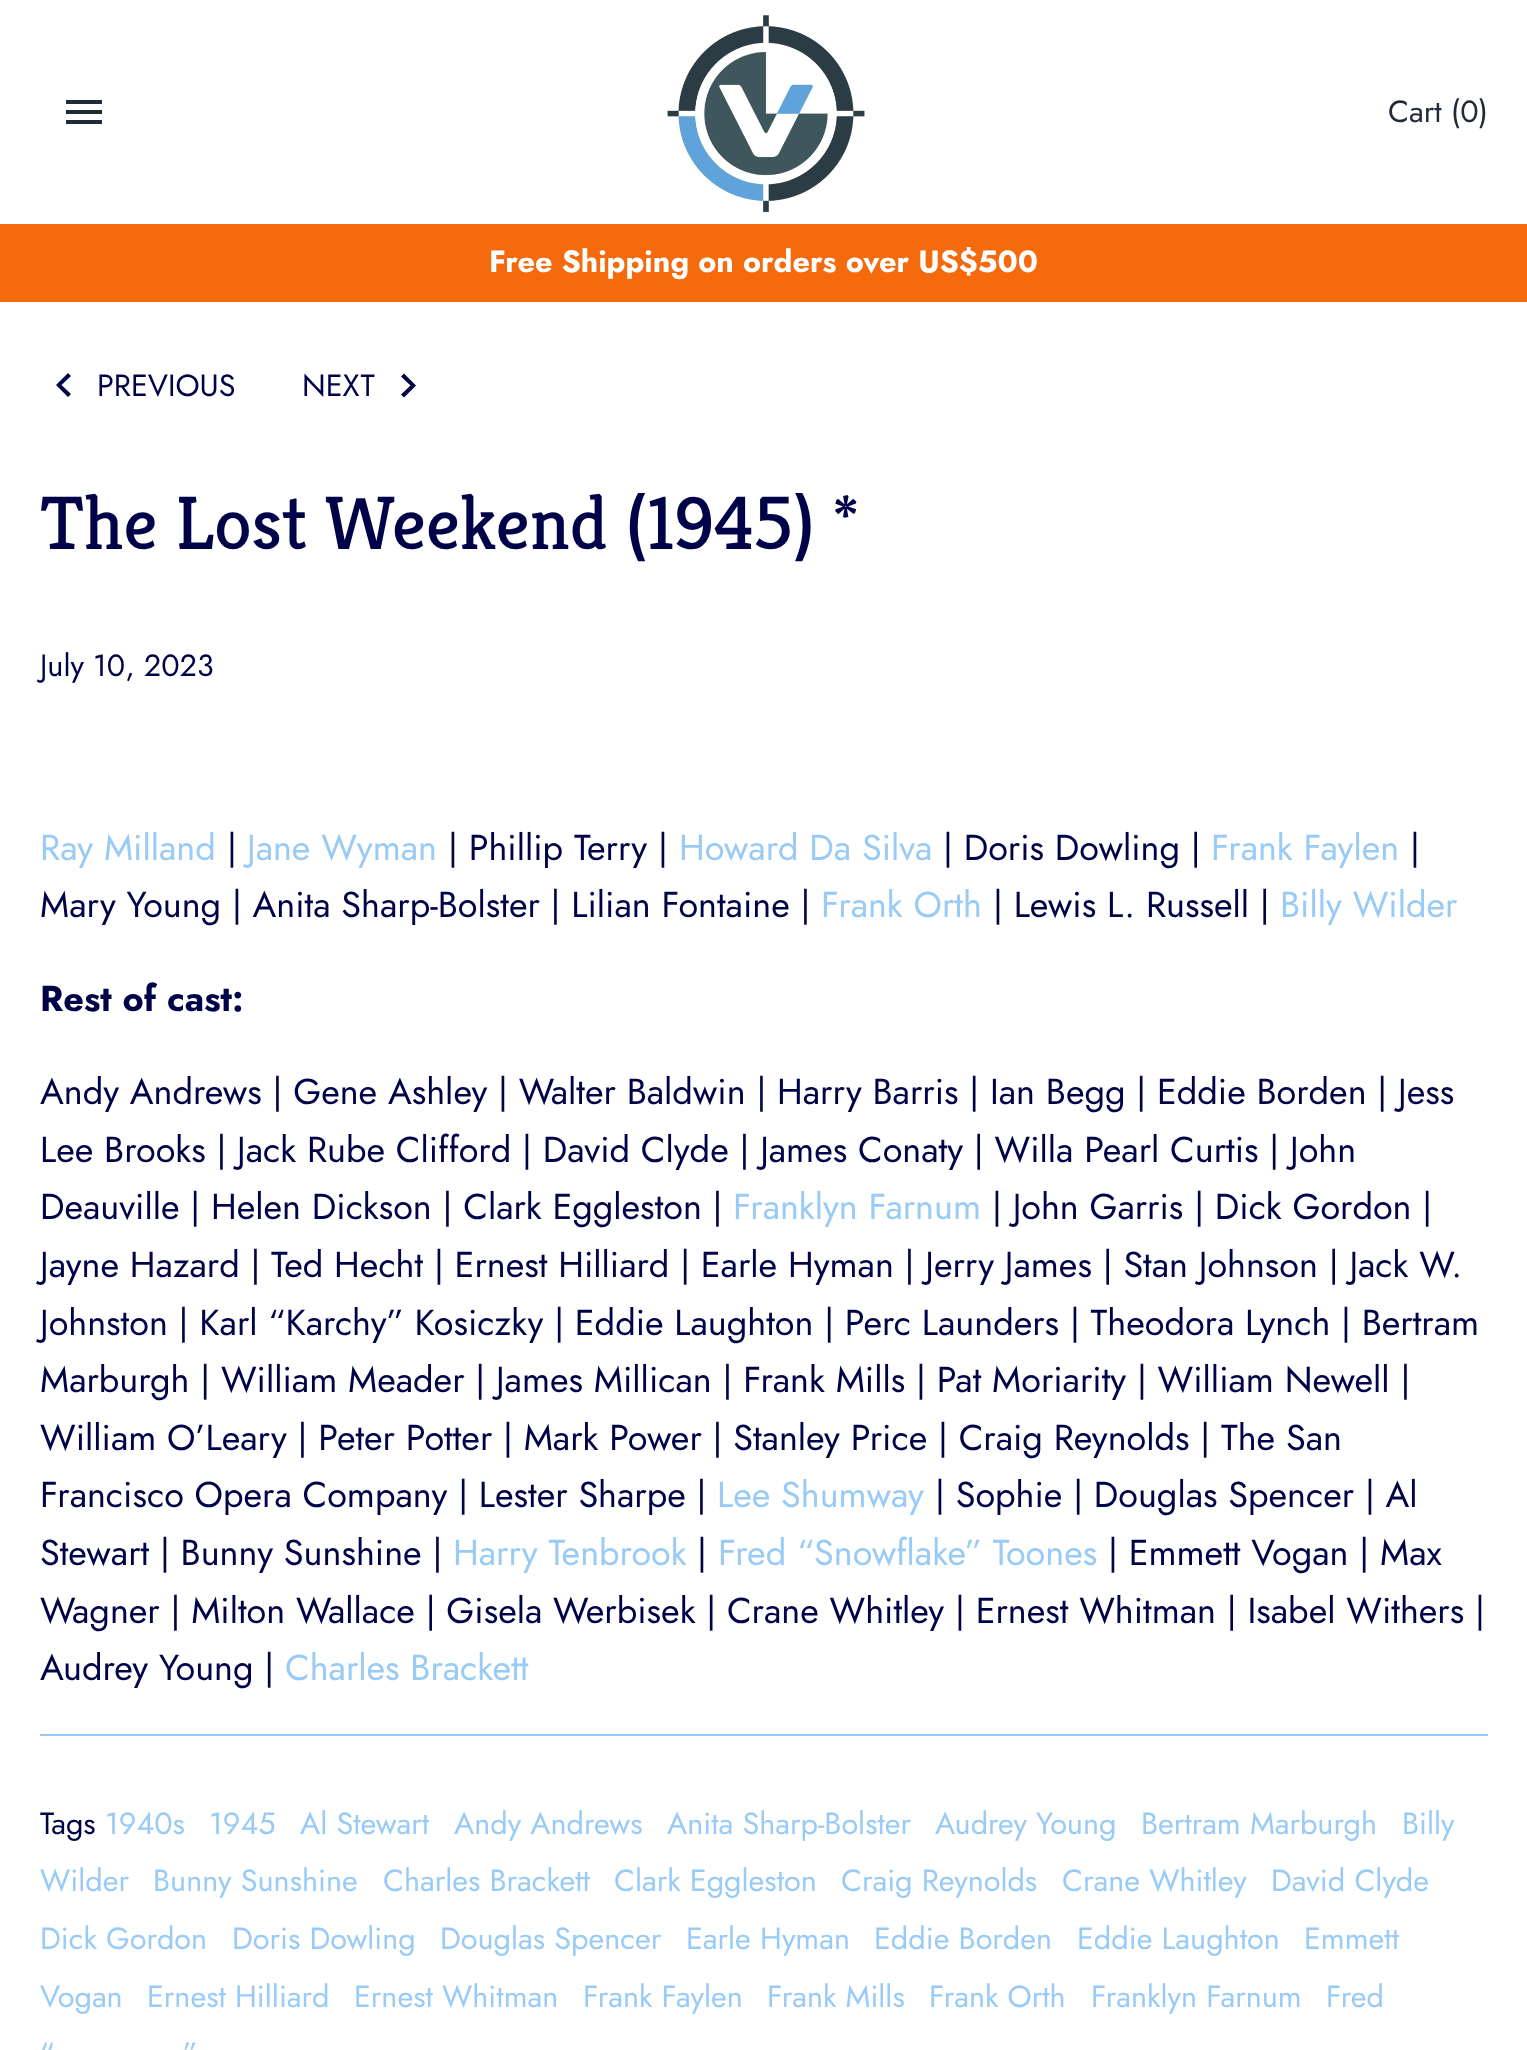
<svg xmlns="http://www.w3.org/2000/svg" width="1527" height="2050">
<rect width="100%" height="100%" fill="#fff"/>
<path d="M66 124h36v-4h-36zm0-10h36v-4h-36zm0-14v4h36v-4z" fill="#212b36"/>
<image x="667" y="15" width="198" height="198" href="media/1.png"/>
<text x="1388" y="122" style="font-family:Jost;font-size:30.6px;fill:#212b36">Cart (0)</text>
<rect y="224" width="1527" height="78" fill="#f46a0c"/>
<text x="489" y="272" style="font-family:Jost;font-size:30.6px;font-weight:bold;fill:#fff">Free Shipping on orders over US$500</text>
<text x="97" y="396" style="font-family:Jost;font-size:30.6px;fill:#010349">PREVIOUS</text>
<path d="M71 394l-9.5-9l9.5-9l-3-3l-12 12l12 12z" fill="#010349"/>
<text x="302" y="396" style="font-family:Jost;font-size:30.6px;fill:#010349">NEXT</text>
<path d="M401 394.5l9.5-9l-9.5-9l3-3l12 12l-12 12z" fill="#010349"/>
<text x="40" y="549" style="font-family:Kreon;font-size:75.6px;fill:#010349">The Lost Weekend (1945) *</text>
<text x="40" y="676" style="font-family:Jost;font-size:30.6px;fill:#010349">July 10, 2023</text>
<rect x="40" y="1734" width="1448" height="2" fill="#99cbf6"/>
<text x="40" y="860" style="font-family:Jost;font-size:36px;fill:#99cbf6">Ray Milland</text>
<text x="227" y="860" style="font-family:Jost;font-size:36px;fill:#010349">|</text>
<text x="247" y="860" style="font-family:Jost;font-size:36px;fill:#99cbf6">Jane Wyman</text>
<text x="448" y="860" style="font-family:Jost;font-size:36px;fill:#010349">| Phillip Terry |</text>
<text x="679" y="860" style="font-family:Jost;font-size:36px;fill:#99cbf6">Howard Da Silva</text>
<text x="943" y="860" style="font-family:Jost;font-size:36px;fill:#010349">| Doris Dowling |</text>
<text x="1211" y="860" style="font-family:Jost;font-size:36px;fill:#99cbf6">Frank Faylen</text>
<text x="1410" y="860" style="font-family:Jost;font-size:36px;fill:#010349">|</text>
<text x="40" y="917" style="font-family:Jost;font-size:36px;fill:#010349">Mary Young | Anita Sharp-Bolster | Lilian Fontaine |</text>
<text x="821" y="917" style="font-family:Jost;font-size:36px;fill:#99cbf6">Frank Orth</text>
<text x="993" y="917" style="font-family:Jost;font-size:36px;fill:#010349">| Lewis L. Russell |</text>
<text x="1280" y="917" style="font-family:Jost;font-size:36px;fill:#99cbf6">Billy Wilder</text>
<text x="40" y="1011" style="font-family:Jost;font-size:36px;font-weight:bold;fill:#010349">Rest of cast:</text>
<text x="40" y="1104" style="font-family:Jost;font-size:36px;fill:#010349">Andy Andrews | Gene Ashley | Walter Baldwin | Harry Barris | Ian Begg | Eddie Borden | Jess</text>
<text x="40" y="1162" style="font-family:Jost;font-size:36px;fill:#010349">Lee Brooks | Jack Rube Clifford | David Clyde | James Conaty | Willa Pearl Curtis | John</text>
<text x="40" y="1219" style="font-family:Jost;font-size:36px;fill:#010349">Deauville | Helen Dickson | Clark Eggleston |</text>
<text x="733" y="1219" style="font-family:Jost;font-size:36px;fill:#99cbf6">Franklyn Farnum</text>
<text x="992" y="1219" style="font-family:Jost;font-size:36px;fill:#010349">| John Garris | Dick Gordon |</text>
<text x="40" y="1277" style="font-family:Jost;font-size:36px;fill:#010349">Jayne Hazard | Ted Hecht | Ernest Hilliard | Earle Hyman | Jerry James | Stan Johnson | Jack W.</text>
<text x="40" y="1335" style="font-family:Jost;font-size:36px;fill:#010349">Johnston | Karl “Karchy” Kosiczky | Eddie Laughton | Perc Launders | Theodora Lynch | Bertram</text>
<text x="40" y="1392" style="font-family:Jost;font-size:36px;fill:#010349">Marburgh | William Meader | James Millican | Frank Mills | Pat Moriarity | William Newell |</text>
<text x="40" y="1450" style="font-family:Jost;font-size:36px;fill:#010349">William O’Leary | Peter Potter | Mark Power | Stanley Price | Craig Reynolds | The San</text>
<text x="40" y="1507" style="font-family:Jost;font-size:36px;fill:#010349">Francisco Opera Company | Lester Sharpe |</text>
<text x="717" y="1507" style="font-family:Jost;font-size:36px;fill:#99cbf6">Lee Shumway</text>
<text x="935" y="1507" style="font-family:Jost;font-size:36px;fill:#010349">| Sophie | Douglas Spencer | Al</text>
<text x="40" y="1565" style="font-family:Jost;font-size:36px;fill:#010349">Stewart | Bunny Sunshine |</text>
<text x="453" y="1565" style="font-family:Jost;font-size:36px;fill:#99cbf6">Harry Tenbrook</text>
<text x="697" y="1565" style="font-family:Jost;font-size:36px;fill:#010349">|</text>
<text x="718" y="1565" style="font-family:Jost;font-size:36px;fill:#99cbf6">Fred “Snowflake” Toones</text>
<text x="1108" y="1565" style="font-family:Jost;font-size:36px;fill:#010349">| Emmett Vogan | Max</text>
<text x="40" y="1623" style="font-family:Jost;font-size:36px;fill:#010349">Wagner | Milton Wallace | Gisela Werbisek | Crane Whitley | Ernest Whitman | Isabel Withers |</text>
<text x="40" y="1680" style="font-family:Jost;font-size:36px;fill:#010349">Audrey Young |</text>
<text x="285" y="1680" style="font-family:Jost;font-size:36px;fill:#99cbf6">Charles Brackett</text>
<text x="40" y="1834" style="font-family:Jost;font-size:30.6px;fill:#010349">Tags</text>
<text x="105" y="1834" style="font-family:Jost;font-size:30.6px;fill:#99cbf6">1940s</text>
<text x="209" y="1834" style="font-family:Jost;font-size:30.6px;fill:#99cbf6">1945</text>
<text x="300" y="1834" style="font-family:Jost;font-size:30.6px;fill:#99cbf6">Al Stewart</text>
<text x="454" y="1834" style="font-family:Jost;font-size:30.6px;fill:#99cbf6">Andy Andrews</text>
<text x="667" y="1834" style="font-family:Jost;font-size:30.6px;fill:#99cbf6">Anita Sharp-Bolster</text>
<text x="935" y="1834" style="font-family:Jost;font-size:30.6px;fill:#99cbf6">Audrey Young</text>
<text x="1141" y="1834" style="font-family:Jost;font-size:30.6px;fill:#99cbf6">Bertram Marburgh</text>
<text x="1402" y="1834" style="font-family:Jost;font-size:30.6px;fill:#99cbf6">Billy</text>
<text x="40" y="1891" style="font-family:Jost;font-size:30.6px;fill:#99cbf6">Wilder</text>
<text x="153" y="1891" style="font-family:Jost;font-size:30.6px;fill:#99cbf6">Bunny Sunshine</text>
<text x="383" y="1891" style="font-family:Jost;font-size:30.6px;fill:#99cbf6">Charles Brackett</text>
<text x="614" y="1891" style="font-family:Jost;font-size:30.6px;fill:#99cbf6">Clark Eggleston</text>
<text x="841" y="1891" style="font-family:Jost;font-size:30.6px;fill:#99cbf6">Craig Reynolds</text>
<text x="1062" y="1891" style="font-family:Jost;font-size:30.6px;fill:#99cbf6">Crane Whitley</text>
<text x="1271" y="1891" style="font-family:Jost;font-size:30.6px;fill:#99cbf6">David Clyde</text>
<text x="40" y="1949" style="font-family:Jost;font-size:30.6px;fill:#99cbf6">Dick Gordon</text>
<text x="232" y="1949" style="font-family:Jost;font-size:30.6px;fill:#99cbf6">Doris Dowling</text>
<text x="440" y="1949" style="font-family:Jost;font-size:30.6px;fill:#99cbf6">Douglas Spencer</text>
<text x="686" y="1949" style="font-family:Jost;font-size:30.6px;fill:#99cbf6">Earle Hyman</text>
<text x="874" y="1949" style="font-family:Jost;font-size:30.6px;fill:#99cbf6">Eddie Borden</text>
<text x="1077" y="1949" style="font-family:Jost;font-size:30.6px;fill:#99cbf6">Eddie Laughton</text>
<text x="1304" y="1949" style="font-family:Jost;font-size:30.6px;fill:#99cbf6">Emmett</text>
<text x="40" y="2007" style="font-family:Jost;font-size:30.6px;fill:#99cbf6">Vogan</text>
<text x="147" y="2007" style="font-family:Jost;font-size:30.6px;fill:#99cbf6">Ernest Hilliard</text>
<text x="354" y="2007" style="font-family:Jost;font-size:30.6px;fill:#99cbf6">Ernest Whitman</text>
<text x="583" y="2007" style="font-family:Jost;font-size:30.6px;fill:#99cbf6">Frank Faylen</text>
<text x="767" y="2007" style="font-family:Jost;font-size:30.6px;fill:#99cbf6">Frank Mills</text>
<text x="929" y="2007" style="font-family:Jost;font-size:30.6px;fill:#99cbf6">Frank Orth</text>
<text x="1091" y="2007" style="font-family:Jost;font-size:30.6px;fill:#99cbf6">Franklyn Farnum</text>
<text x="1326" y="2007" style="font-family:Jost;font-size:30.6px;fill:#99cbf6">Fred</text>
<text x="40" y="2064" style="font-family:Jost;font-size:30.6px;fill:#99cbf6">“</text>
<text x="183" y="2064" style="font-family:Jost;font-size:30.6px;fill:#99cbf6">”</text>
</svg>
